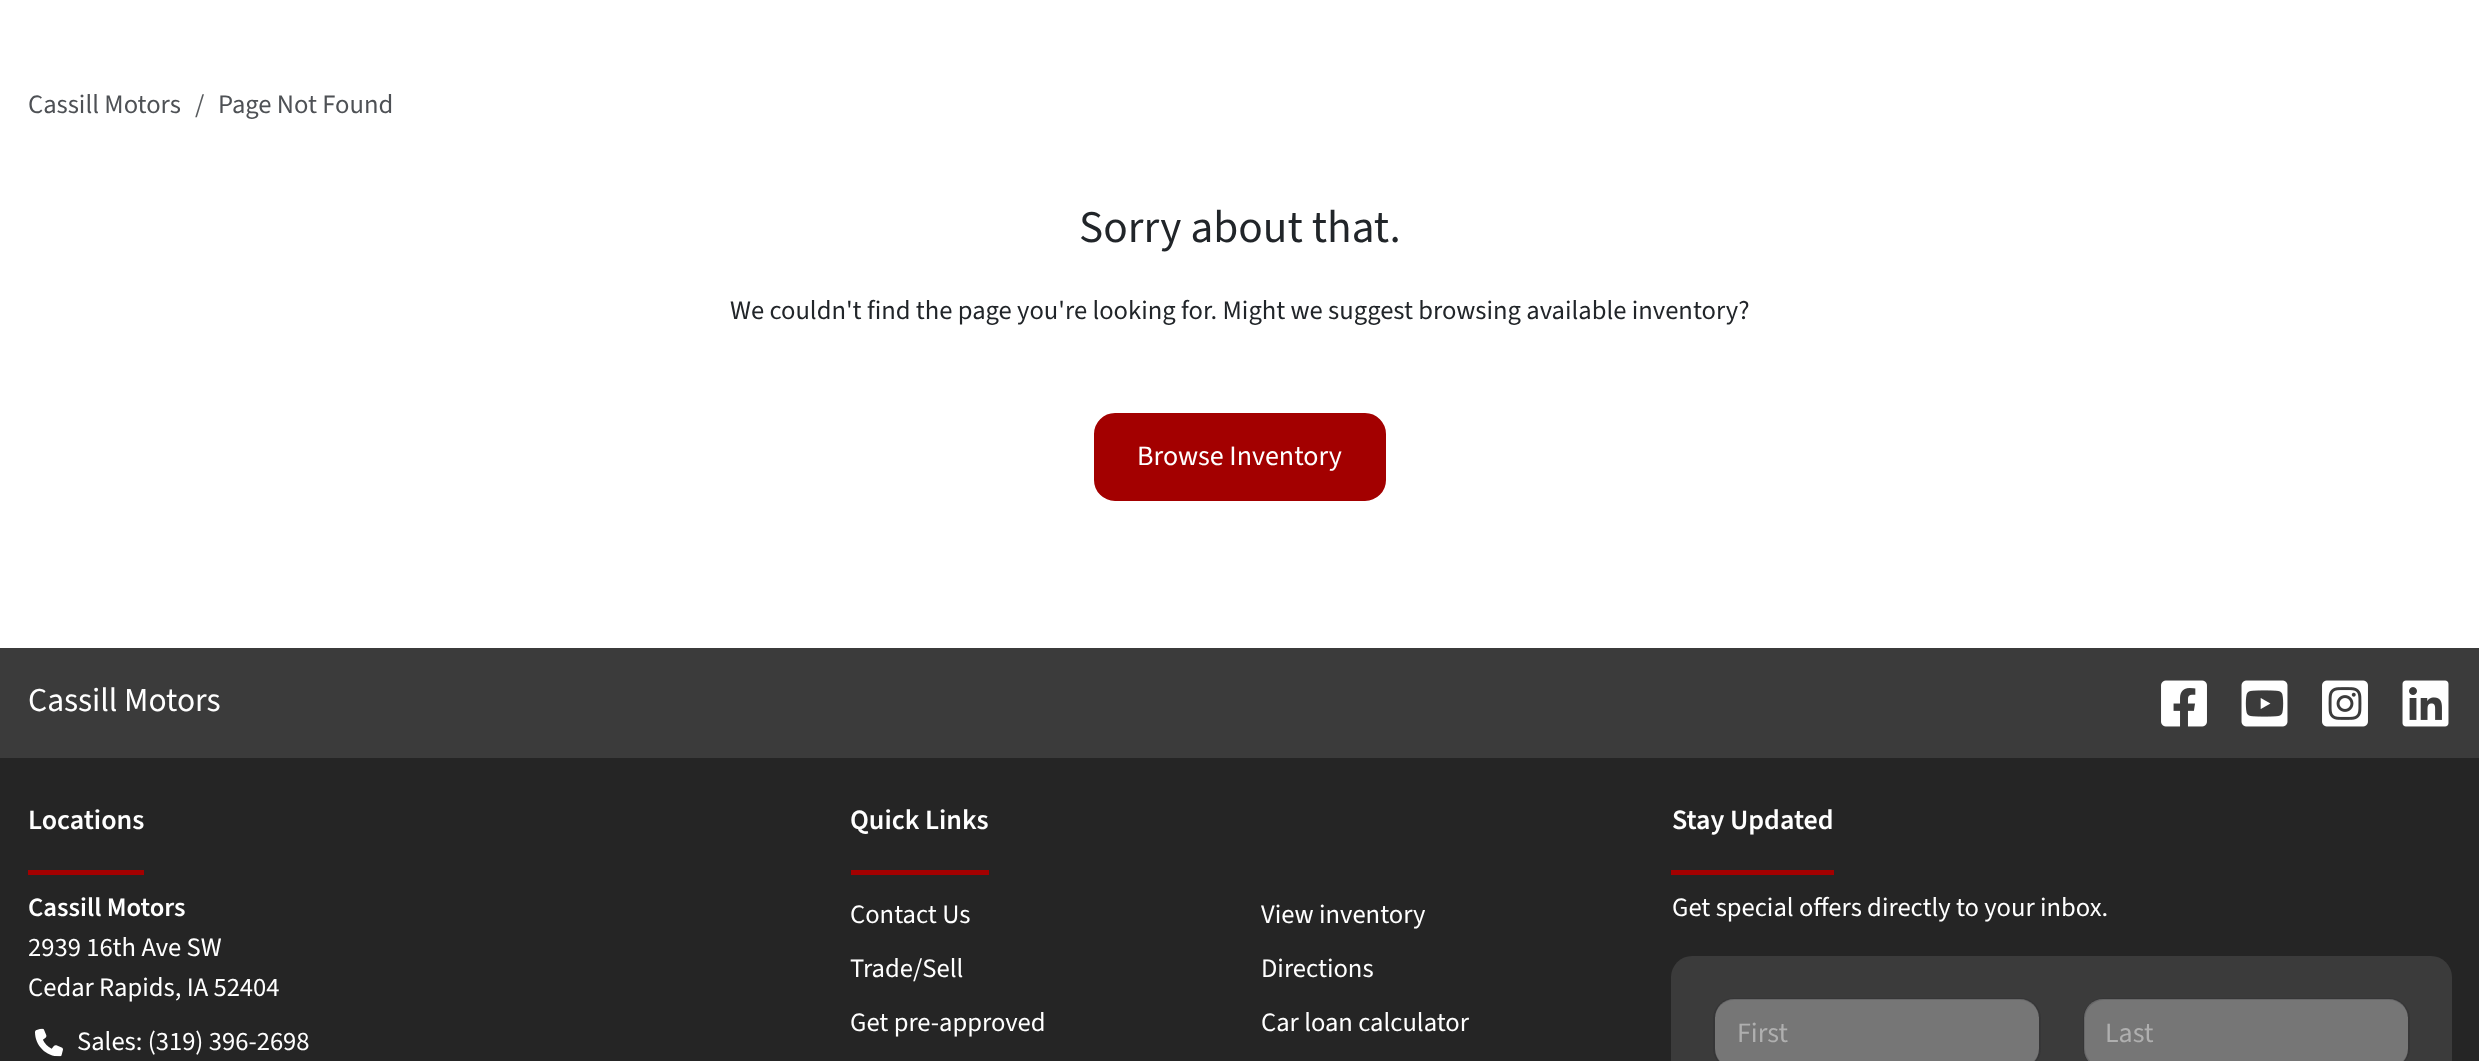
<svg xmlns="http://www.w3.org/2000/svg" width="2479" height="1061">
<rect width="100%" height="100%" fill="#fff"/>
<text x="28" y="113" style="font-family:'Source Sans 3';font-size:26.6px;font-weight:200;fill:#4e5155">Cassill Motors</text>
<text x="195" y="113" style="font-family:'Source Sans 3';font-size:26.6px;font-weight:200;fill:#595c5f">/</text>
<text x="218" y="113" style="font-family:'Source Sans 3';font-size:26.6px;font-weight:200;fill:#4e5155">Page Not Found</text>
<text x="1079" y="242" style="font-family:'Source Sans 3';font-size:45.25px;font-weight:200;fill:#212529">Sorry about that.</text>
<text x="730" y="319" style="font-family:'Source Sans 3';font-size:26.6px;font-weight:200;fill:#212529">We couldn't find the page you're looking for. Might we suggest browsing available inventory?</text>
<rect x="1095" y="414" width="290" height="86" rx="20" fill="#a30000" stroke="#a30000" stroke-width="2"/>
<text x="1137" y="465" style="font-family:'Source Sans 3';font-size:28px;font-weight:200;fill:#fff">Browse Inventory</text>
<rect y="758" width="2479" height="303" fill="#252525"/>
<rect y="648" width="2479" height="110" fill="#3b3b3b"/>
<text x="28" y="711" style="font-family:'Source Sans 3';font-size:33.5px;font-weight:200;fill:#fff">Cassill Motors</text>
<image x="2161" y="680" width="46" height="47" href="media/1.png"/>
<image x="2241" y="680" width="47" height="47" href="media/2.png"/>
<image x="2322" y="680" width="46" height="47" href="media/3.png"/>
<image x="2402" y="680" width="47" height="47" href="media/4.png"/>
<rect x="28" y="870" width="116" height="5" fill="#a30000"/>
<text x="28" y="829" style="font-family:'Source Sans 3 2';font-size:28px;font-weight:200;fill:#fff">Locations</text>
<text x="28" y="916" style="font-family:'Source Sans 3 2';font-size:26.6px;font-weight:200;fill:#fff">Cassill Motors</text>
<text x="28" y="956" style="font-family:'Source Sans 3';font-size:26.6px;font-weight:200;fill:#fff">2939 16th Ave SW</text>
<text x="28" y="996" style="font-family:'Source Sans 3';font-size:26.6px;font-weight:200;fill:#fff">Cedar Rapids, IA 52404</text>
<image x="35" y="1028" width="28" height="29" href="media/5.png"/>
<text x="77" y="1050" style="font-family:'Source Sans 3';font-size:26.6px;font-weight:200;fill:#fff">Sales: (319) 396-2698</text>
<rect x="851" y="870" width="138" height="5" fill="#a30000"/>
<text x="850" y="829" style="font-family:'Source Sans 3 2';font-size:28px;font-weight:200;fill:#fff">Quick Links</text>
<text x="850" y="923" style="font-family:'Source Sans 3';font-size:26.6px;font-weight:200;fill:#fff">Contact Us</text>
<text x="1261" y="923" style="font-family:'Source Sans 3';font-size:26.6px;font-weight:200;fill:#fff">View inventory</text>
<text x="850" y="977" style="font-family:'Source Sans 3';font-size:26.6px;font-weight:200;fill:#fff">Trade/Sell</text>
<text x="1261" y="977" style="font-family:'Source Sans 3';font-size:26.6px;font-weight:200;fill:#fff">Directions</text>
<text x="850" y="1031" style="font-family:'Source Sans 3';font-size:26.6px;font-weight:200;fill:#fff">Get pre-approved</text>
<text x="1261" y="1031" style="font-family:'Source Sans 3';font-size:26.6px;font-weight:200;fill:#fff">Car loan calculator</text>
<rect x="1671" y="870" width="163" height="5" fill="#a30000"/>
<text x="1672" y="829" style="font-family:'Source Sans 3 2';font-size:28px;font-weight:200;fill:#fff">Stay Updated</text>
<text x="1672" y="916" style="font-family:'Source Sans 3';font-size:26.6px;font-weight:200;fill:#fff">Get special offers directly to your inbox.</text>
<rect x="1671" y="956" width="781" height="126" rx="21" fill="#3b3b3b"/>
<rect x="1715" y="999" width="324" height="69" rx="19" fill="#767676"/>
<rect x="1714" y="999" width="326" height="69" rx="20" fill="none" stroke="#181c2126" stroke-width="2"/>
<text x="1737" y="1042" style="font-family:'Source Sans 3';font-size:28px;font-weight:200;fill:#afafaf">First</text>
<rect x="2084" y="999" width="324" height="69" rx="19" fill="#767676"/>
<rect x="2084" y="999" width="325" height="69" rx="20" fill="none" stroke="#181c2126" stroke-width="2"/>
<text x="2105" y="1042" style="font-family:'Source Sans 3';font-size:28px;font-weight:200;fill:#afafaf">Last</text>
</svg>
